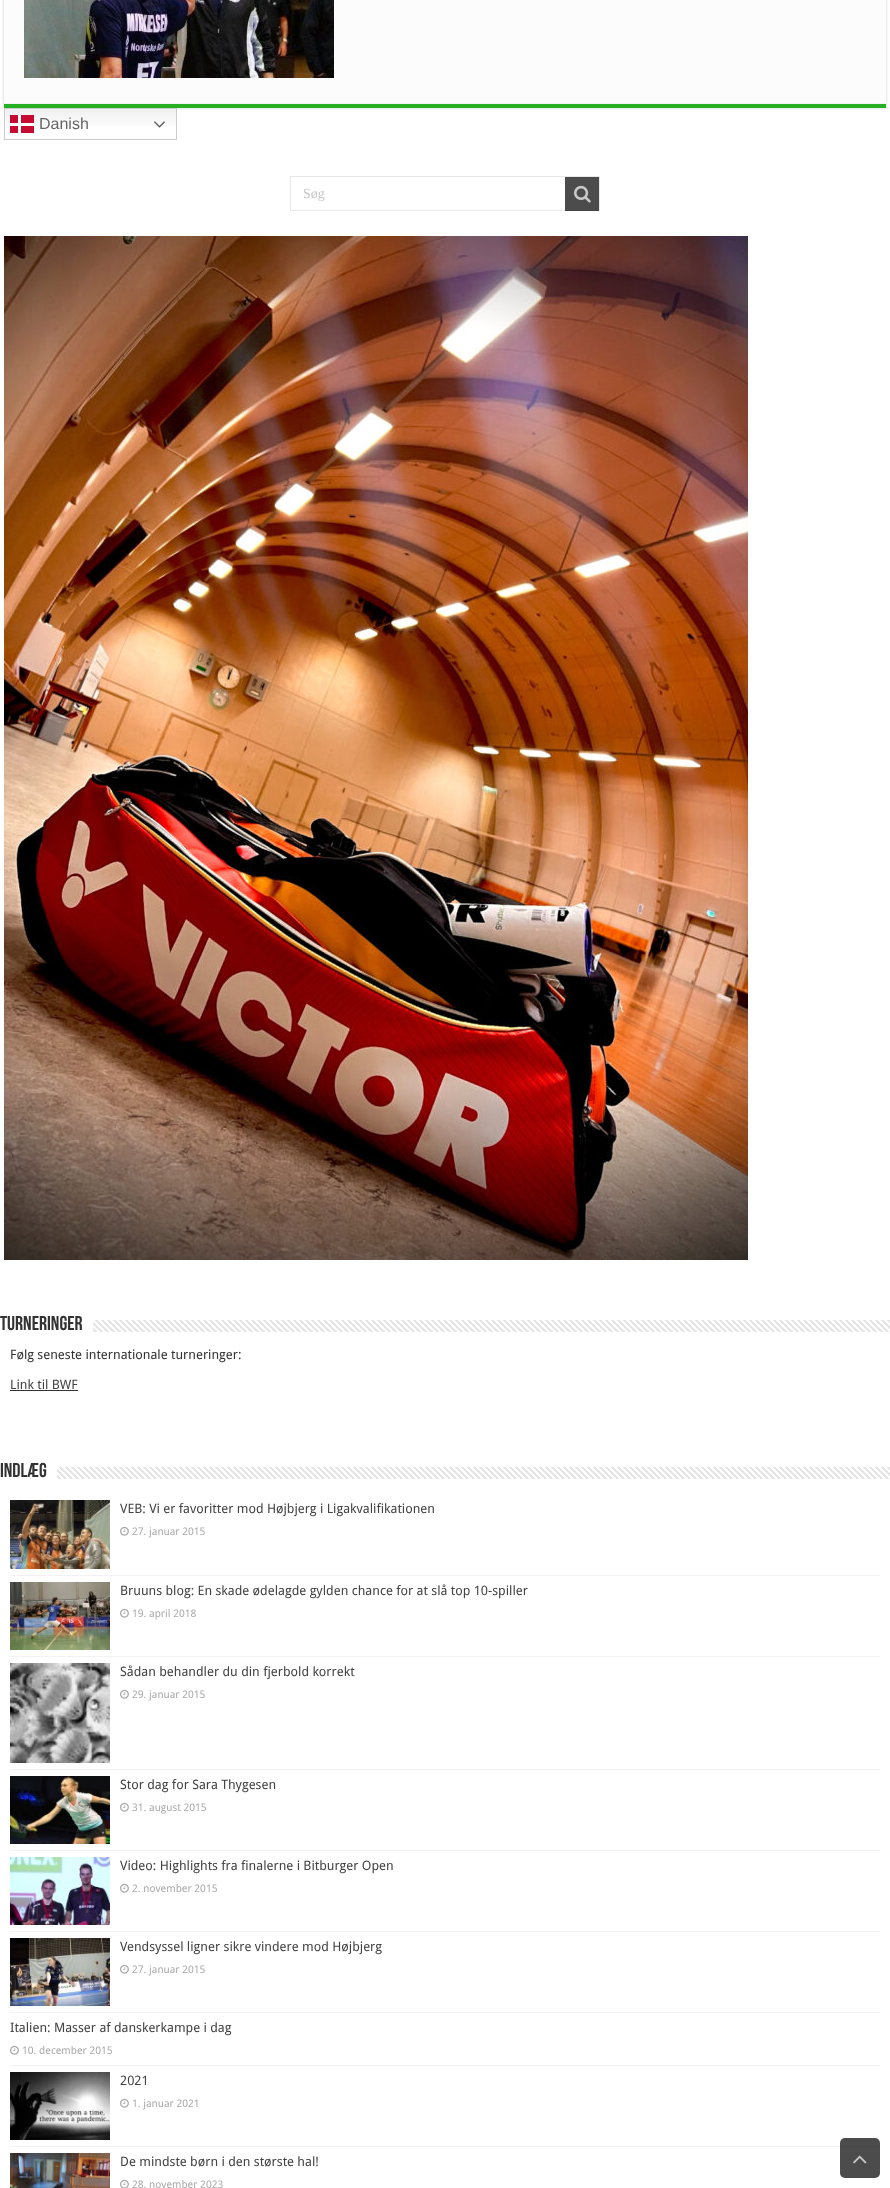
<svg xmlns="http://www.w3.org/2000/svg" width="890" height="2188">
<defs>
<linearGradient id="g1" gradientUnits="userSpaceOnUse" x1="91" y1="108" x2="91" y2="140"><stop offset="0" stop-color="#efefef"/><stop offset="0.7" stop-color="#fff"/></linearGradient>
</defs>
<rect width="100%" height="100%" fill="#fff"/>
<rect x="4" y="-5" width="882" height="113" fill="#cacaca" filter="blur(1.5px)"/>
<rect x="4" width="882" height="103" fill="#fcfcfc"/>
<rect x="4" y="104" width="882" height="4" fill="#25b123"/>
<rect x="4" y="103" width="882" height="1" fill="#f2f2f2"/>
<image x="24" y="0" width="310" height="78" href="media/1.png"/>
<rect x="5" y="109" width="171" height="18" fill="url(#g1)"/>
<rect x="4.5" y="108.5" width="172" height="31" fill="none" stroke="#ccc"/>
<rect x="10" y="115" width="24" height="18" fill="#c60c30"/>
<rect x="18" y="115" width="3" height="18" fill="#fff"/>
<text x="39" y="129" style="font-family:Liberation Sans;font-size:16px;fill:#666">Danish</text>
<image x="154" y="121" width="11" height="7" href="media/2.png"/>
<rect x="10" y="123" width="24" height="3" fill="#fff"/>
<rect x="290.5" y="176.5" width="309" height="34" fill="none" stroke="#e8e8e8"/>
<text x="303" y="198" style="font-family:Liberation Serif;font-size:14px;fill:#c5c5c5">Søg</text>
<rect x="565" y="177" width="34" height="34" fill="#000000b3"/>
<image x="574" y="185" width="17" height="18" href="media/3.png"/>
<image x="4" y="236" width="744" height="1024" href="media/4.png"/>
<text x="0" y="1330" style="font-family:Bebas Neue;font-size:20px;font-weight:bold;fill:#333">Turneringer</text>
<image x="93" y="1320" width="797" height="12" href="media/5.png"/>
<text x="10" y="1359" style="font-family:Droid Sans;font-size:13px;fill:#333">Følg seneste internationale turneringer:</text>
<text x="10" y="1389" style="font-family:Droid Sans;font-size:13px;fill:#444">Link til BWF</text>
<rect x="10" y="1390" width="68" height="1" fill="#333"/>
<text x="0" y="1477" style="font-family:Bebas Neue;font-size:20px;font-weight:bold;fill:#333">Indlæg</text>
<image x="57" y="1467" width="833" height="12" href="media/6.png"/>
<rect x="10" y="1575" width="870" height="1" fill="#f2f2f2"/>
<image x="10" y="1500" width="100" height="69" href="media/7.png"/>
<text x="120" y="1513" style="font-family:Droid Sans;font-size:13px;fill:#444">VEB: Vi er favoritter mod Højbjerg i Ligakvalifikationen</text>
<image x="120" y="1526" width="9" height="10" href="media/8.png"/>
<text x="132" y="1535" style="font-family:Droid Sans;font-size:10.5px;fill:#aaa">27. januar 2015</text>
<rect x="10" y="1656" width="870" height="1" fill="#f2f2f2"/>
<image x="10" y="1582" width="100" height="68" href="media/9.png"/>
<text x="120" y="1595" style="font-family:Droid Sans;font-size:13px;fill:#444">Bruuns blog: En skade ødelagde gylden chance for at slå top 10-spiller</text>
<image x="120" y="1608" width="9" height="10" href="media/8.png"/>
<text x="132" y="1617" style="font-family:Droid Sans;font-size:10.5px;fill:#aaa">19. april 2018</text>
<rect x="10" y="1769" width="870" height="1" fill="#f2f2f2"/>
<image x="10" y="1663" width="100" height="100" href="media/10.png"/>
<text x="120" y="1676" style="font-family:Droid Sans;font-size:13px;fill:#444">Sådan behandler du din fjerbold korrekt</text>
<image x="120" y="1689" width="9" height="10" href="media/8.png"/>
<text x="132" y="1698" style="font-family:Droid Sans;font-size:10.5px;fill:#aaa">29. januar 2015</text>
<rect x="10" y="1850" width="870" height="1" fill="#f2f2f2"/>
<image x="10" y="1776" width="100" height="68" href="media/11.png"/>
<text x="120" y="1789" style="font-family:Droid Sans;font-size:13px;fill:#444">Stor dag for Sara Thygesen</text>
<image x="120" y="1802" width="9" height="10" href="media/8.png"/>
<text x="132" y="1811" style="font-family:Droid Sans;font-size:10.5px;fill:#aaa">31. august 2015</text>
<rect x="10" y="1931" width="870" height="1" fill="#f2f2f2"/>
<image x="10" y="1857" width="100" height="68" href="media/12.png"/>
<text x="120" y="1870" style="font-family:Droid Sans;font-size:13px;fill:#444">Video: Highlights fra finalerne i Bitburger Open</text>
<image x="120" y="1883" width="9" height="10" href="media/8.png"/>
<text x="132" y="1892" style="font-family:Droid Sans;font-size:10.5px;fill:#aaa">2. november 2015</text>
<rect x="10" y="2012" width="870" height="1" fill="#f2f2f2"/>
<image x="10" y="1938" width="100" height="68" href="media/13.png"/>
<text x="120" y="1951" style="font-family:Droid Sans;font-size:13px;fill:#444">Vendsyssel ligner sikre vindere mod Højbjerg</text>
<image x="120" y="1964" width="9" height="10" href="media/8.png"/>
<text x="132" y="1973" style="font-family:Droid Sans;font-size:10.5px;fill:#aaa">27. januar 2015</text>
<rect x="10" y="2065" width="870" height="1" fill="#f2f2f2"/>
<text x="10" y="2032" style="font-family:Droid Sans;font-size:13px;fill:#444">Italien: Masser af danskerkampe i dag</text>
<image x="10" y="2045" width="9" height="10" href="media/8.png"/>
<text x="22" y="2054" style="font-family:Droid Sans;font-size:10.5px;fill:#aaa">10. december 2015</text>
<rect x="10" y="2146" width="870" height="1" fill="#f2f2f2"/>
<image x="10" y="2072" width="100" height="68" href="media/14.png"/>
<text x="120" y="2085" style="font-family:Droid Sans;font-size:13px;fill:#444">2021</text>
<image x="120" y="2098" width="9" height="10" href="media/8.png"/>
<text x="132" y="2107" style="font-family:Droid Sans;font-size:10.5px;fill:#aaa">1. januar 2021</text>
<image x="10" y="2153" width="100" height="35" href="media/15.png"/>
<text x="120" y="2166" style="font-family:Droid Sans;font-size:13px;fill:#444">De mindste børn i den største hal!</text>
<image x="120" y="2179" width="9" height="9" href="media/16.png"/>
<text x="132" y="2188" style="font-family:Droid Sans;font-size:10.5px;fill:#aaa">28. november 2023</text>
<rect x="840" y="2138" width="40" height="40" rx="5" fill="#000000b3"/>
<image x="853" y="2155" width="14" height="9" href="media/17.png"/>
</svg>
